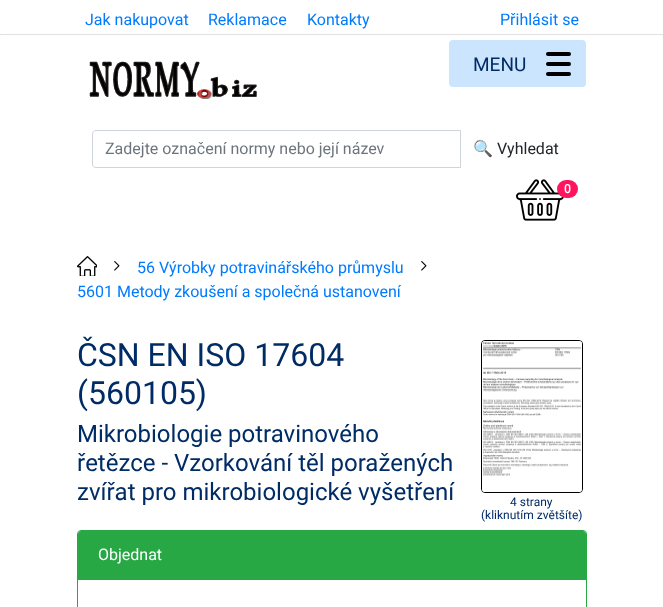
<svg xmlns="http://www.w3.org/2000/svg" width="663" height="607">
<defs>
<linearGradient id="g1" gradientUnits="userSpaceOnUse" x1="663" y1="34" x2="663" y2="37"><stop offset="0" stop-color="#d8d8d8"/><stop offset="0.5" stop-color="#d8d8d8"/><stop offset="0.5" stop-color="#e2e2e2"/><stop offset="1" stop-color="#e2e2e2"/></linearGradient>
<linearGradient id="g2" gradientUnits="userSpaceOnUse" x1="0.5" y1="34" x2="0.5" y2="37"><stop offset="0" stop-color="#d8d8d8"/><stop offset="0.5" stop-color="#d8d8d8"/><stop offset="0.5" stop-color="#e2e2e2"/><stop offset="1" stop-color="#e2e2e2"/></linearGradient>
</defs>
<rect width="100%" height="100%" fill="#fff"/>
<rect y="34" width="663" height="1" fill="#e2e2e2"/>
<text x="85" y="25" style="font-family:Roboto;font-size:16px;fill:#007bff">Jak nakupovat</text>
<text x="208" y="25" style="font-family:Roboto;font-size:16px;fill:#007bff">Reklamace</text>
<text x="307" y="25" style="font-family:Roboto;font-size:16px;fill:#007bff">Kontakty</text>
<text x="500" y="25" style="font-family:Roboto;font-size:16px;fill:#007bff">Přihlásit se</text>
<image x="89" y="61" width="168" height="38" href="media/1.png"/>
<path d="M96 130.5h364.5v37h-364.5c-2 0-3.5-1.5-3.5-3.5v-30c0-2 1.5-3.5 3.5-3.5z" fill="none" stroke="#ced4da"/>
<text x="105" y="154" style="font-family:Roboto;font-size:16px;fill:#6c757d">Zadejte označení normy nebo její název</text>
<text x="473" y="154" style="font-family:Noto Color Emoji;font-size:16px;fill:#212529">🔍</text>
<text x="497" y="154" style="font-family:Roboto;font-size:16px;fill:#212529">Vyhledat</text>
<image x="516" y="179" width="48" height="42" href="media/2.png"/>
<rect x="557" y="180" width="21" height="18" rx="9" fill="#fe155f"/>
<text x="564" y="193" style="font-family:Roboto;font-size:12px;font-weight:bold;fill:#fff">0</text>
<rect x="449" y="40" width="137" height="47" rx="4" fill="#cce5ff"/>
<text x="473" y="71" style="font-family:Roboto;font-size:19px;fill:#002c66">MENU</text>
<rect x="546" y="62" width="25" height="4" rx="2" fill="#000"/>
<rect x="546" y="52" width="25" height="4" rx="2" fill="#000"/>
<rect x="546" y="72" width="25" height="4" rx="2" fill="#000"/>
<image x="77" y="256" width="20" height="20" href="media/3.png"/>
<image x="114" y="261" width="6" height="10" href="media/4.png"/>
<text x="137" y="273" style="font-family:Roboto;font-size:16px;fill:#007bff">56 Výrobky potravinářského průmyslu</text>
<image x="421" y="261" width="6" height="10" href="media/4.png"/>
<text x="77" y="297" style="font-family:Roboto;font-size:16px;fill:#007bff">5601 Metody zkoušení a společná ustanovení</text>
<text x="77" y="366" style="font-family:Roboto;font-size:32px;fill:#002c66">ČSN EN ISO 17604</text>
<text x="77" y="404" style="font-family:Roboto;font-size:32px;fill:#002c66">(560105)</text>
<text x="77" y="442" style="font-family:Roboto;font-size:24px;fill:#002c66">Mikrobiologie potravinového</text>
<text x="77" y="471" style="font-family:Roboto;font-size:24px;fill:#002c66">řetězce - Vzorkování těl poražených</text>
<text x="77" y="500" style="font-family:Roboto;font-size:24px;fill:#002c66">zvířat pro mikrobiologické vyšetření</text>
<rect x="481.5" y="340.5" width="101" height="152" rx="3.5" fill="none" stroke="#000"/>
<image x="482" y="341" width="100" height="151" href="media/5.png"/>
<text x="510" y="506" style="font-family:Roboto;font-size:12px;fill:#002c66">4 strany</text>
<text x="481" y="519" style="font-family:Roboto;font-size:12px;fill:#002c66">(kliknutím zvětšíte)</text>
<rect x="77.5" y="530.5" width="509" height="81" rx="3.5" fill="none" stroke="#28a745"/>
<path d="M81 531h502c1.5 0 3 1.5 3 3v46h-508v-46c0-1.5 1.5-3 3-3z" fill="#28a745"/>
<text x="98" y="560" style="font-family:Roboto;font-size:16px;fill:#fff">Objednat</text>
<rect x="662" y="34" width="1" height="1" fill="url(#g1)"/>
<rect y="34" width="1" height="1" fill="url(#g2)"/>
</svg>
